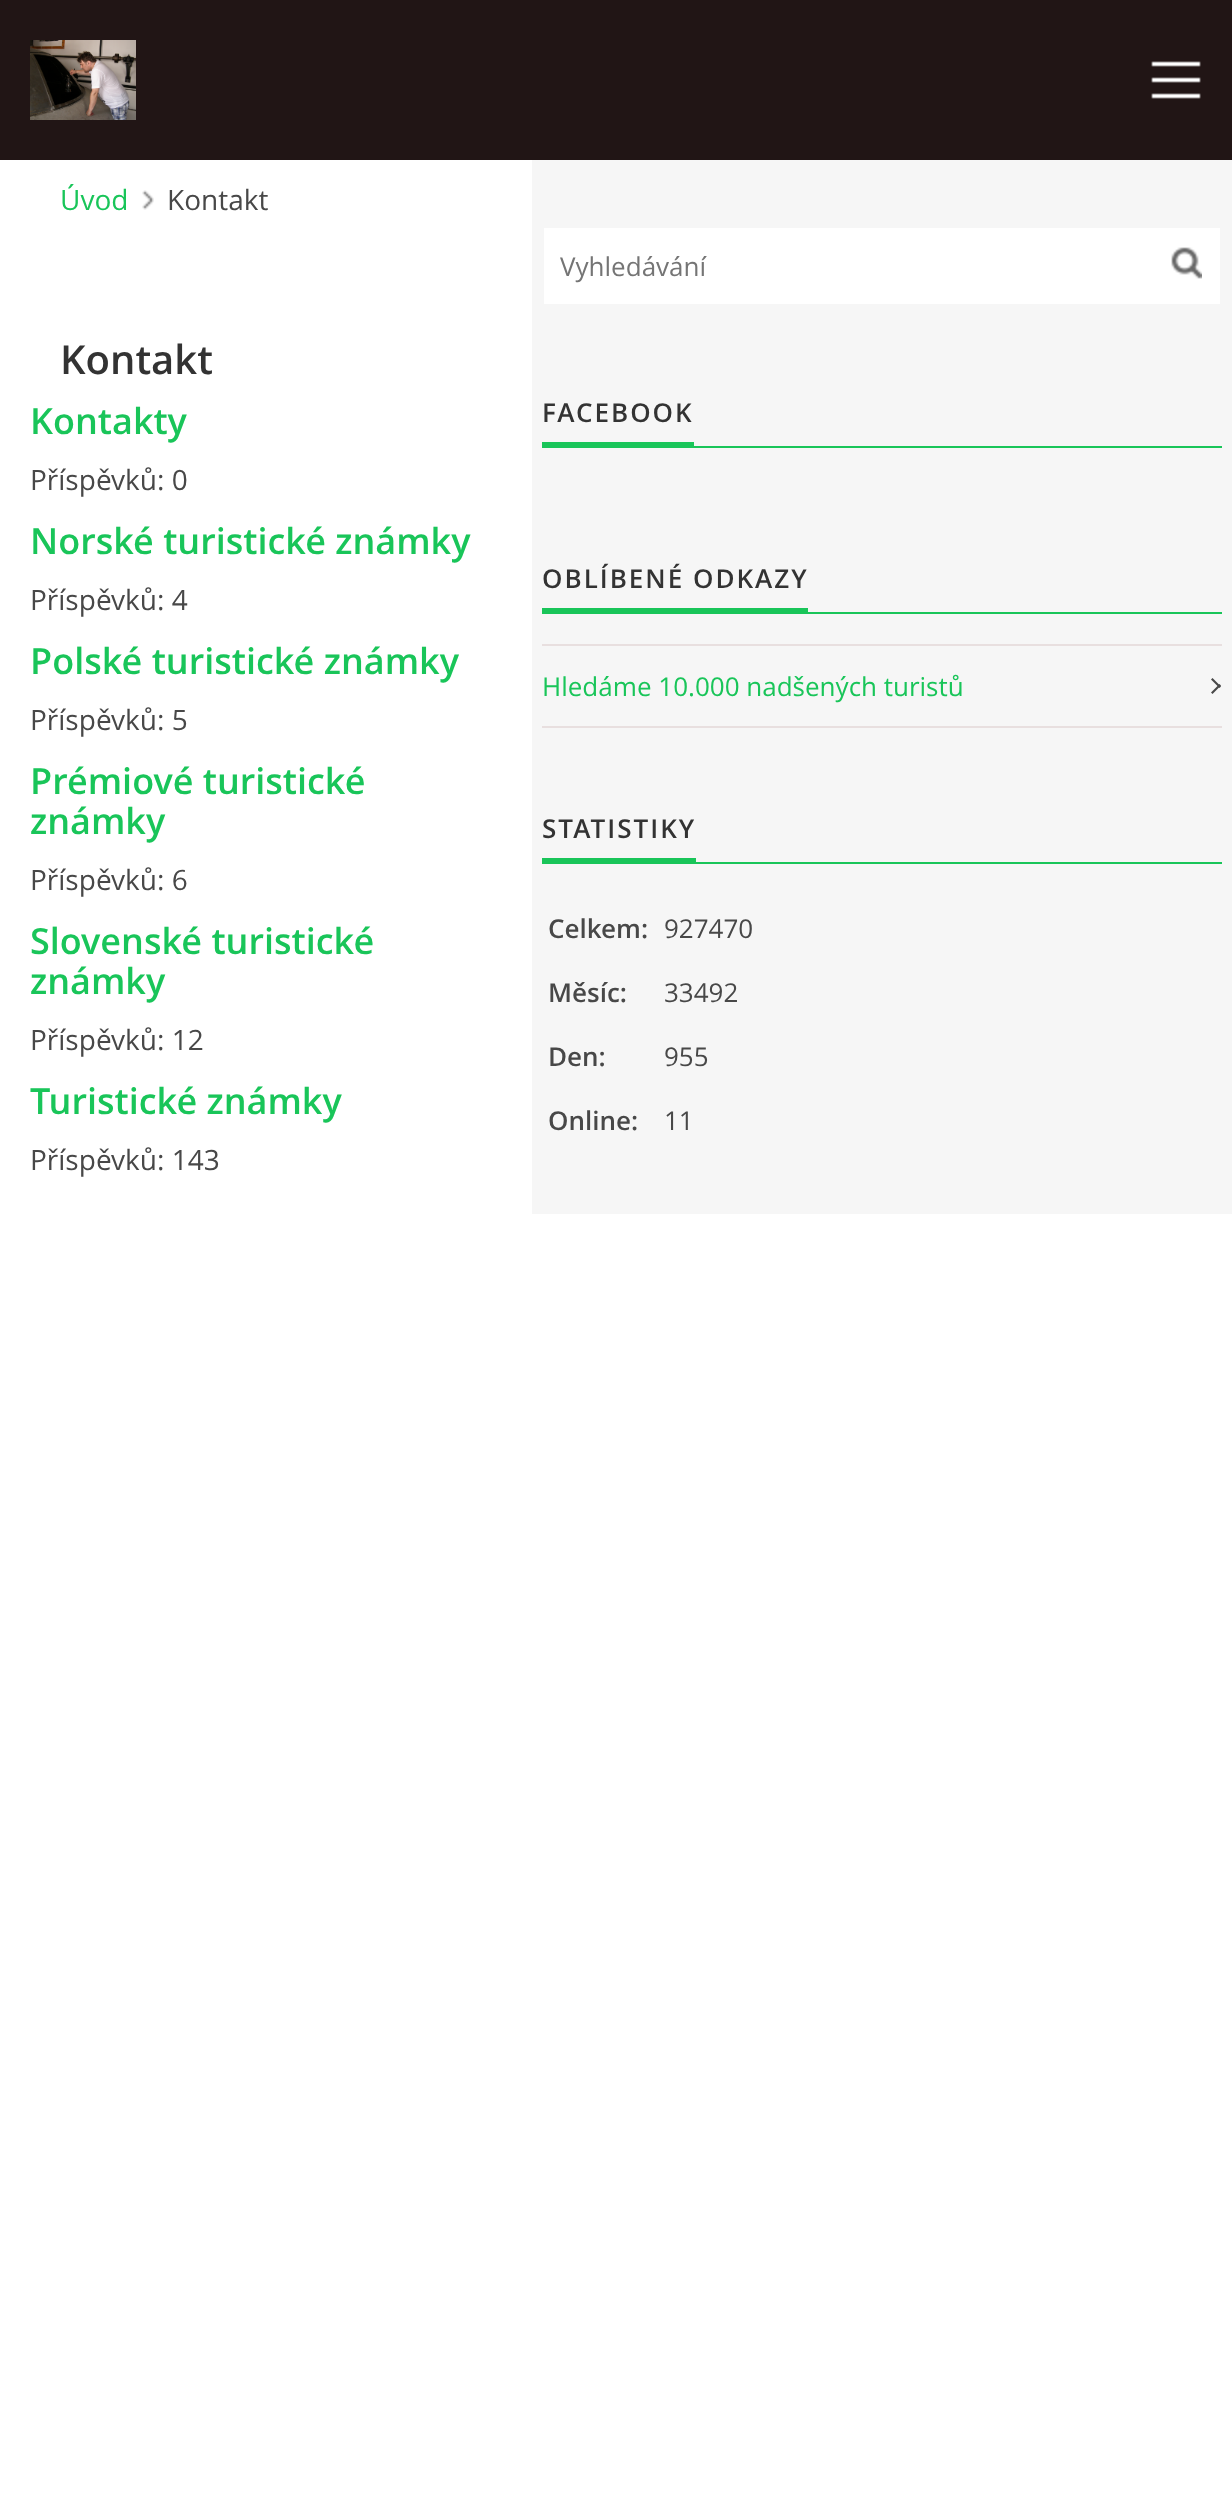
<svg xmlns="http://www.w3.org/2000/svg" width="1232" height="2520">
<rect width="100%" height="100%" fill="#fff"/>
<rect width="1232" height="160" fill="#211515"/>
<image x="30" y="40" width="106" height="80" href="media/1.png"/>
<image x="1151" y="61" width="50" height="38" href="media/2.png"/>
<image x="142" y="190" width="12" height="20" href="media/3.png"/>
<text x="60" y="210" style="font-family:Open Sans;font-size:28px;fill:#19c559">Úvod</text>
<text x="167" y="210" style="font-family:Open Sans;font-size:28px;fill:#484848">Kontakt</text>
<text x="60" y="374" style="font-family:Open Sans;font-size:40px;font-weight:600;fill:#333">Kontakt</text>
<text x="30" y="434" style="font-family:Open Sans;font-size:36px;font-weight:600;fill:#19c559">Kontakty</text>
<text x="30" y="490" style="font-family:Open Sans;font-size:28px;fill:#484848">Příspěvků: 0</text>
<text x="30" y="554" style="font-family:Open Sans;font-size:36px;font-weight:600;fill:#19c559">Norské turistické známky</text>
<text x="30" y="610" style="font-family:Open Sans;font-size:28px;fill:#484848">Příspěvků: 4</text>
<text x="30" y="674" style="font-family:Open Sans;font-size:36px;font-weight:600;fill:#19c559">Polské turistické známky</text>
<text x="30" y="730" style="font-family:Open Sans;font-size:28px;fill:#484848">Příspěvků: 5</text>
<text x="30" y="794" style="font-family:Open Sans;font-size:36px;font-weight:600;fill:#19c559">Prémiové turistické</text>
<text x="30" y="834" style="font-family:Open Sans;font-size:36px;font-weight:600;fill:#19c559">známky</text>
<text x="30" y="890" style="font-family:Open Sans;font-size:28px;fill:#484848">Příspěvků: 6</text>
<text x="30" y="954" style="font-family:Open Sans;font-size:36px;font-weight:600;fill:#19c559">Slovenské turistické</text>
<text x="30" y="994" style="font-family:Open Sans;font-size:36px;font-weight:600;fill:#19c559">známky</text>
<text x="30" y="1050" style="font-family:Open Sans;font-size:28px;fill:#484848">Příspěvků: 12</text>
<text x="30" y="1114" style="font-family:Open Sans;font-size:36px;font-weight:600;fill:#19c559">Turistické známky</text>
<text x="30" y="1170" style="font-family:Open Sans;font-size:28px;fill:#484848">Příspěvků: 143</text>
<rect x="532" y="160" width="700" height="1054" fill="#f6f6f6"/>
<rect x="544" y="228" width="676" height="76" fill="#fff"/>
<text x="560" y="276" style="font-family:Open Sans;font-size:26px;fill:#757575">Vyhledávání</text>
<image x="1171" y="247" width="31" height="32" href="media/4.png"/>
<text x="542" y="422" style="font-family:Open Sans;font-size:26px;font-weight:600;letter-spacing:2px;fill:#333">FACEBOOK</text>
<rect x="542" y="442" width="152" height="4" fill="#19c559"/>
<rect x="542" y="446" width="680" height="2" fill="#19c559"/>
<text x="542" y="588" style="font-family:Open Sans;font-size:26px;font-weight:600;letter-spacing:2px;fill:#333">OBLÍBENÉ ODKAZY</text>
<rect x="542" y="608" width="266" height="4" fill="#19c559"/>
<rect x="542" y="612" width="680" height="2" fill="#19c559"/>
<rect x="542" y="644" width="680" height="2" fill="#e8dfdf"/>
<rect x="542" y="726" width="680" height="2" fill="#e8dfdf"/>
<text x="542" y="696" style="font-family:Open Sans;font-size:26px;fill:#19c559">Hledáme 10.000 nadšených turistů</text>
<path d="M1212.5 678l8.5 8.5l-1.5 1.5l-8.5-8.5z" fill="#484848"/>
<path d="M1211 692.5l8.5-8.5l1.5 1.5l-8.5 8.5z" fill="#484848"/>
<text x="542" y="838" style="font-family:Open Sans;font-size:26px;font-weight:600;letter-spacing:2px;fill:#333">STATISTIKY</text>
<rect x="542" y="858" width="154" height="4" fill="#19c559"/>
<rect x="542" y="862" width="680" height="2" fill="#19c559"/>
<text x="548" y="938" style="font-family:Open Sans;font-size:26px;font-weight:600;fill:#484848">Celkem:</text>
<text x="664" y="938" style="font-family:Open Sans;font-size:26px;fill:#484848">927470</text>
<text x="548" y="1002" style="font-family:Open Sans;font-size:26px;font-weight:600;fill:#484848">Měsíc:</text>
<text x="664" y="1002" style="font-family:Open Sans;font-size:26px;fill:#484848">33492</text>
<text x="548" y="1066" style="font-family:Open Sans;font-size:26px;font-weight:600;fill:#484848">Den:</text>
<text x="664" y="1066" style="font-family:Open Sans;font-size:26px;fill:#484848">955</text>
<text x="548" y="1130" style="font-family:Open Sans;font-size:26px;font-weight:600;fill:#484848">Online:</text>
<text x="664" y="1130" style="font-family:Open Sans;font-size:26px;fill:#484848">11</text>
</svg>
